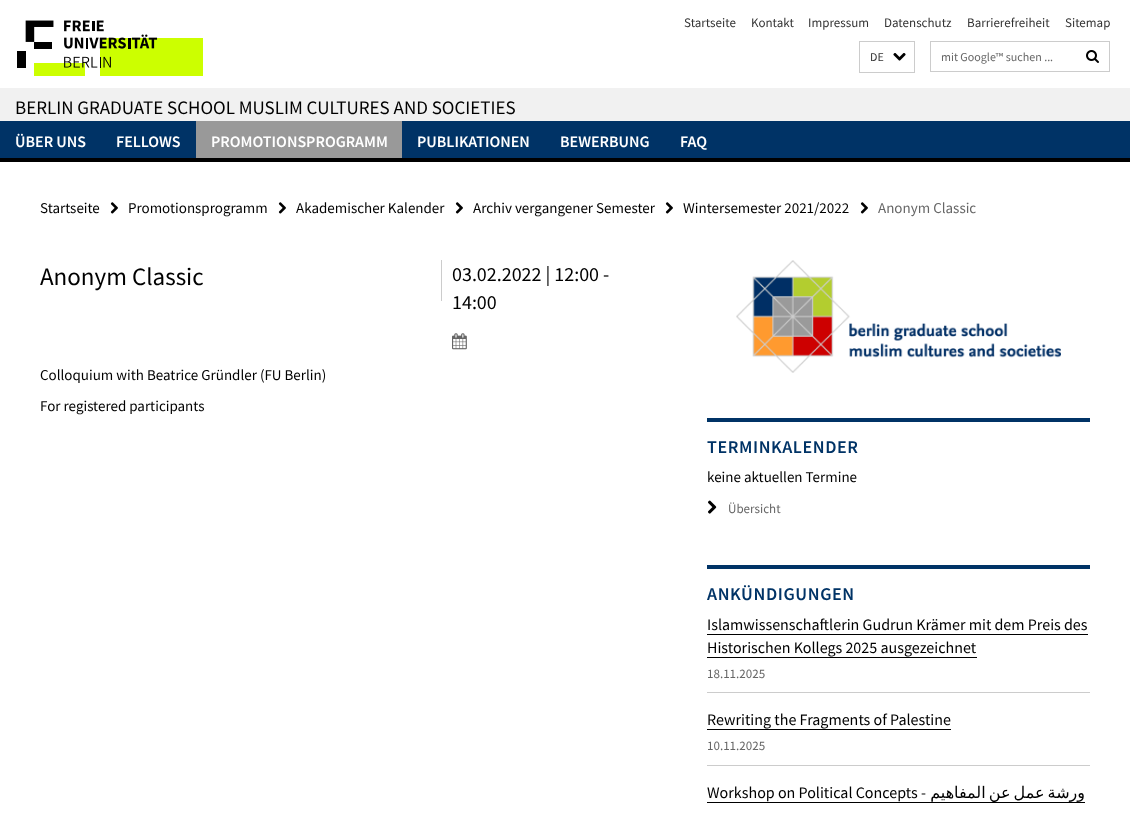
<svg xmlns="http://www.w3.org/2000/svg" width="1130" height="819">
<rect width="100%" height="100%" fill="#fff"/>
<image x="17" y="20" width="186" height="56" href="media/1.png"/>
<text x="684" y="27" style="font-family:Source Sans Pro;font-size:13px;fill:#333">Startseite</text>
<text x="751" y="27" style="font-family:Source Sans Pro;font-size:13px;fill:#333">Kontakt</text>
<text x="808" y="27" style="font-family:Source Sans Pro;font-size:13px;fill:#333">Impressum</text>
<text x="884" y="27" style="font-family:Source Sans Pro;font-size:13px;fill:#333">Datenschutz</text>
<text x="967" y="27" style="font-family:Source Sans Pro;font-size:13px;fill:#333">Barrierefreiheit</text>
<text x="1065" y="27" style="font-family:Source Sans Pro;font-size:13px;fill:#333">Sitemap</text>
<rect x="859.5" y="41.5" width="55" height="31" fill="none" stroke="#ccc"/>
<text x="870" y="61" style="font-family:Source Sans Pro;font-size:12px;fill:#333">DE</text>
<image x="893" y="53" width="13" height="8" href="media/2.png"/>
<rect x="930.5" y="41.5" width="179" height="30" fill="none" stroke="#ccc"/>
<text x="941" y="61" style="font-family:Source Sans Pro;font-size:12px;fill:#666">mit Google™ suchen ...</text>
<image x="1086" y="50" width="13" height="13" href="media/3.png"/>
<rect y="88" width="1130" height="33" fill="#f1f1f1"/>
<text x="15" y="114" style="font-family:Source Sans Pro;font-size:19px;fill:#000">BERLIN GRADUATE SCHOOL MUSLIM CULTURES AND SOCIETIES</text>
<rect y="121" width="1130" height="37" fill="#036"/>
<rect y="158" width="1130" height="4" fill="#000"/>
<text x="15" y="147" style="font-family:Source Sans Pro;font-size:16px;font-weight:600;fill:#fff">ÜBER UNS</text>
<text x="116" y="147" style="font-family:Source Sans Pro;font-size:16px;font-weight:600;fill:#fff">FELLOWS</text>
<rect x="196" y="121" width="206" height="37" fill="#999"/>
<text x="211" y="147" style="font-family:Source Sans Pro;font-size:16px;font-weight:600;fill:#fff">PROMOTIONSPROGRAMM</text>
<text x="417" y="147" style="font-family:Source Sans Pro;font-size:16px;font-weight:600;fill:#fff">PUBLIKATIONEN</text>
<text x="560" y="147" style="font-family:Source Sans Pro;font-size:16px;font-weight:600;fill:#fff">BEWERBUNG</text>
<text x="680" y="147" style="font-family:Source Sans Pro;font-size:16px;font-weight:600;fill:#fff">FAQ</text>
<text x="40" y="213" style="font-family:Source Sans Pro;font-size:15px;fill:#000">Startseite</text>
<image x="110" y="202" width="8" height="12" href="media/4.png"/>
<text x="128" y="213" style="font-family:Source Sans Pro;font-size:15px;fill:#000">Promotionsprogramm</text>
<image x="278" y="202" width="8" height="12" href="media/4.png"/>
<text x="296" y="213" style="font-family:Source Sans Pro;font-size:15px;fill:#000">Akademischer Kalender</text>
<image x="455" y="202" width="8" height="12" href="media/4.png"/>
<text x="473" y="213" style="font-family:Source Sans Pro;font-size:15px;fill:#000">Archiv vergangener Semester</text>
<image x="665" y="202" width="8" height="12" href="media/4.png"/>
<text x="683" y="213" style="font-family:Source Sans Pro;font-size:15px;fill:#000">Wintersemester 2021/2022</text>
<image x="860" y="202" width="8" height="12" href="media/4.png"/>
<text x="878" y="213" style="font-family:Source Sans Pro;font-size:15px;fill:#666">Anonym Classic</text>
<rect x="441" y="260" width="1" height="41" fill="#ccc"/>
<text x="40" y="285" style="font-family:Source Sans Pro;font-size:25px;fill:#000">Anonym Classic</text>
<text x="452" y="281" style="font-family:Source Sans Pro;font-size:20px;fill:#000">03.02.2022 | 12:00 -</text>
<text x="452" y="309" style="font-family:Source Sans Pro;font-size:20px;fill:#000">14:00</text>
<image x="452" y="333" width="15" height="17" href="media/5.png"/>
<text x="40" y="380" style="font-family:Source Sans Pro;font-size:15px;fill:#000">Colloquium with Beatrice Gründler (FU Berlin)</text>
<text x="40" y="411" style="font-family:Source Sans Pro;font-size:15px;fill:#000">For registered participants</text>
<image x="736" y="260" width="325" height="113" href="media/6.png"/>
<rect x="707" y="418" width="383" height="4" fill="#036"/>
<text x="707" y="453" style="font-family:Source Sans Pro;font-size:18px;font-weight:600;letter-spacing:0.6px;fill:#036">TERMINKALENDER</text>
<text x="707" y="482" style="font-family:Source Sans Pro;font-size:15px;fill:#000">keine aktuellen Termine</text>
<image x="708" y="500" width="9" height="14" href="media/7.png"/>
<text x="728" y="513" style="font-family:Source Sans Pro;font-size:13px;fill:#666">Übersicht</text>
<rect x="707" y="565" width="383" height="4" fill="#036"/>
<text x="707" y="600" style="font-family:Source Sans Pro;font-size:18px;font-weight:600;letter-spacing:0.6px;fill:#036">ANKÜNDIGUNGEN</text>
<rect x="707" y="692" width="383" height="1" fill="#ccc"/>
<text x="707" y="630" style="font-family:Source Sans Pro;font-size:16px;fill:#000">Islamwissenschaftlerin Gudrun Krämer mit dem Preis des</text>
<rect x="707" y="634" width="381" height="1" fill="#000"/>
<text x="707" y="653" style="font-family:Source Sans Pro;font-size:16px;fill:#000">Historischen Kollegs 2025 ausgezeichnet</text>
<rect x="707" y="657" width="270" height="1" fill="#000"/>
<text x="707" y="678" style="font-family:Source Sans Pro;font-size:13px;fill:#666">18.11.2025</text>
<rect x="707" y="765" width="383" height="1" fill="#ccc"/>
<text x="707" y="725" style="font-family:Source Sans Pro;font-size:16px;fill:#000">Rewriting the Fragments of Palestine</text>
<rect x="707" y="729" width="244" height="1" fill="#000"/>
<text x="707" y="750" style="font-family:Source Sans Pro;font-size:13px;fill:#666">10.11.2025</text>
<text x="707" y="798" style="font-family:Source Sans Pro;font-size:16px;fill:#000">Workshop on Political Concepts -</text>
<rect x="707" y="802" width="378" height="1" fill="#000"/>
<text x="1085" y="798" word-spacing="-2" style="font-family:DejaVu Sans;font-size:16px;direction:rtl;fill:#000">ورشة عمل عن المفاهيم</text>
</svg>
